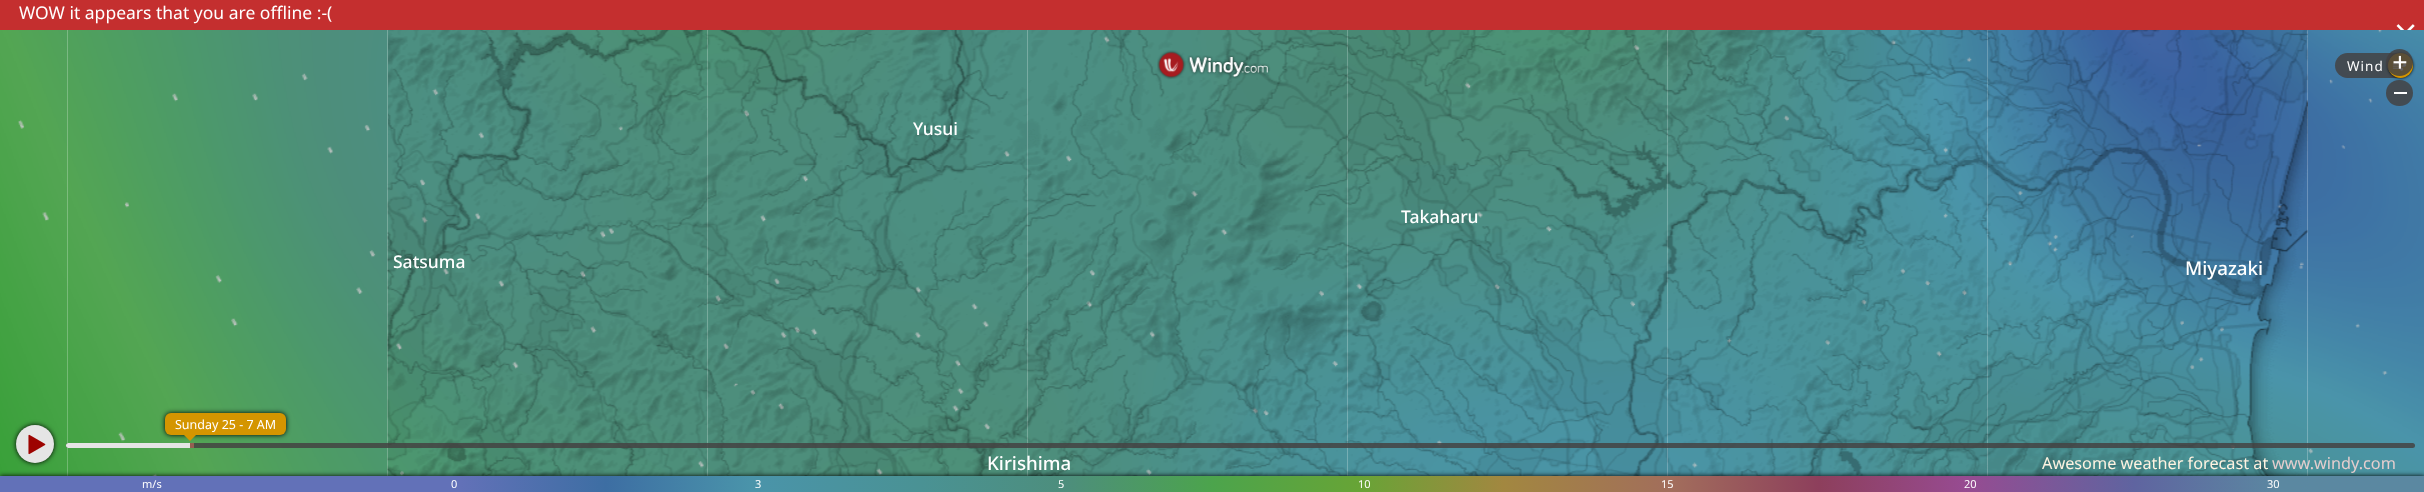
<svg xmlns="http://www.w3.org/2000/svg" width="2424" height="492">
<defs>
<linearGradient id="g1" gradientUnits="userSpaceOnUse" x1="0" y1="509" x2="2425" y2="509"><stop offset="0" stop-color="#6271b8"/><stop offset="0.19" stop-color="#6271b8"/><stop offset="0.25" stop-color="#3d6ea3"/><stop offset="0.31" stop-color="#4a94aa"/><stop offset="0.38" stop-color="#4a9294"/><stop offset="0.44" stop-color="#4d8e7c"/><stop offset="0.5" stop-color="#4ca44c"/><stop offset="0.56" stop-color="#67a436"/><stop offset="0.62" stop-color="#a28740"/><stop offset="0.69" stop-color="#a26d5c"/><stop offset="0.75" stop-color="#8d3f5c"/><stop offset="0.81" stop-color="#974b91"/><stop offset="0.88" stop-color="#5f64a0"/><stop offset="0.94" stop-color="#5b88a1"/><stop offset="1" stop-color="#5b88a1"/></linearGradient>
</defs>
<rect width="100%" height="100%" fill="#fff"/>
<rect width="2424" height="30" fill="#c42f2f"/>
<text x="19" y="19" style="font-family:Noto Sans;font-size:17.5px;fill:#fff">WOW it appears that you are offline :-(</text>
<image x="2396" y="24" width="19" height="6" href="media/1.png"/>
<image x="1027" y="30" width="321" height="135" href="media/10.png"/>
<image x="707" y="30" width="321" height="135" href="media/9.png"/>
<image x="387" y="30" width="321" height="135" href="media/8.png"/>
<image x="67" y="30" width="321" height="135" href="media/7.png"/>
<image x="0" y="30" width="68" height="135" href="media/6.png"/>
<image x="1347" y="30" width="321" height="135" href="media/11.png"/>
<image x="1667" y="30" width="321" height="135" href="media/12.png"/>
<image x="1987" y="30" width="321" height="135" href="media/13.png"/>
<image x="2307" y="30" width="117" height="135" href="media/14.png"/>
<image x="1027" y="165" width="321" height="311" href="media/19.png"/>
<image x="707" y="165" width="321" height="311" href="media/18.png"/>
<image x="387" y="165" width="321" height="311" href="media/17.png"/>
<image x="67" y="165" width="321" height="311" href="media/16.png"/>
<image x="0" y="165" width="68" height="311" href="media/15.png"/>
<image x="1347" y="165" width="321" height="311" href="media/20.png"/>
<image x="1667" y="165" width="321" height="311" href="media/21.png"/>
<image x="1987" y="165" width="321" height="311" href="media/22.png"/>
<image x="2307" y="165" width="117" height="311" href="media/23.png"/>
<image x="18" y="30" width="2370" height="446" href="media/24.png"/>
<image x="1028" y="30" width="320" height="135" href="media/27.png"/>
<image x="1157" y="50" width="29" height="29" href="media/2.png"/>
<image x="1187" y="55" width="83" height="24" href="media/3.png"/>
<rect x="2335" y="53" width="78" height="25" rx="12.5" fill="#444141d6"/>
<text x="2347" y="71" style="font-family:Noto Sans;font-size:13.5px;letter-spacing:1px;fill:#fff">Wind</text>
<rect x="2388" y="53" width="25" height="25" rx="12.5" fill="#000" filter="blur(1.5px)"/>
<circle cx="2400.5" cy="65.5" r="12.5" fill="#d49500"/>
<image x="2392" y="61" width="15" height="10" href="media/4.png"/>
<circle cx="2399.5" cy="62.5" r="13.5" fill="#444141d6"/>
<image x="2393" y="55" width="14" height="14" href="media/5.png"/>
<rect x="2386" y="80" width="27" height="26" rx="13" fill="#444141d6"/>
<rect x="2394" y="92" width="13" height="2" fill="#fff"/>
<image x="388" y="30" width="320" height="135" href="media/25.png"/>
<image x="708" y="30" width="320" height="135" href="media/26.png"/>
<image x="1348" y="30" width="320" height="135" href="media/28.png"/>
<image x="1668" y="30" width="320" height="135" href="media/29.png"/>
<image x="1988" y="30" width="320" height="135" href="media/30.png"/>
<image x="1027" y="165" width="321" height="311" href="media/33.png"/>
<image x="707" y="165" width="321" height="311" href="media/32.png"/>
<image x="387" y="165" width="321" height="311" href="media/31.png"/>
<image x="1347" y="165" width="321" height="311" href="media/34.png"/>
<image x="1667" y="165" width="321" height="311" href="media/35.png"/>
<image x="1987" y="165" width="321" height="311" href="media/36.png"/>
<text x="913" y="135" style="font-family:Noto Sans;font-size:17.5px;font-weight:500;fill:#fff">Yusui</text>
<text x="1401" y="223" style="font-family:Noto Sans;font-size:17.5px;font-weight:500;fill:#fff">Takaharu</text>
<text x="393" y="268" style="font-family:Noto Sans;font-size:17.5px;font-weight:500;fill:#fff">Satsuma</text>
<text x="2185" y="275" style="font-family:Noto Sans;font-size:18.75px;font-weight:500;fill:#fff">Miyazaki</text>
<text x="987" y="470" style="font-family:Noto Sans;font-size:18.75px;font-weight:500;fill:#fff">Kirishima</text>
<rect x="16" y="425" width="38" height="38" rx="19" fill="#000" filter="blur(2.5px)"/>
<circle cx="35" cy="444" r="19" fill="#e5e5e5"/>
<image x="28" y="434" width="18" height="21" href="media/37.png"/>
<rect x="165" y="413" width="121" height="22" rx="6" fill="#000" filter="blur(2.5px)"/>
<rect x="165" y="413" width="121" height="22" rx="6" fill="#d49500"/>
<text x="175" y="429" style="font-family:Noto Sans;font-size:12.5px;fill:#fff">Sunday 25 - 7 AM</text>
<path d="M184 435h12l-6 6z" fill="#d49500"/>
<rect x="66" y="443" width="2349" height="5" rx="2.5" fill="#444141d6"/>
<path d="M68.5 443h121.5v5h-121.5c-1.5 0-2.5-1-2.5-2.5c0-1.5 1-2.5 2.5-2.5z" fill="#e5e5e5"/>
<rect x="190" y="443" width="4" height="5" fill="#946051"/>
<rect y="476" width="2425" height="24" fill="#000" filter="blur(2.5px)"/>
<text x="2042" y="469" style="font-family:Noto Sans;font-size:16.25px;fill:#fff3e1">Awesome weather forecast at</text>
<text x="2272" y="469" style="font-family:Noto Sans;font-size:16.25px;fill:#e6cece">www.windy.com</text>
<rect y="476" width="2424" height="16" fill="url(#g1)"/>
<text x="142" y="488" style="font-family:Noto Sans;font-size:11px;fill:#fff">m/s</text>
<text x="451" y="488" style="font-family:Noto Sans;font-size:11px;fill:#fff">0</text>
<text x="755" y="488" style="font-family:Noto Sans;font-size:11px;fill:#fff">3</text>
<text x="1058" y="488" style="font-family:Noto Sans;font-size:11px;fill:#fff">5</text>
<text x="1358" y="488" style="font-family:Noto Sans;font-size:11px;fill:#fff">10</text>
<text x="1661" y="488" style="font-family:Noto Sans;font-size:11px;fill:#fff">15</text>
<text x="1964" y="488" style="font-family:Noto Sans;font-size:11px;fill:#fff">20</text>
<text x="2267" y="488" style="font-family:Noto Sans;font-size:11px;fill:#fff">30</text>
</svg>
